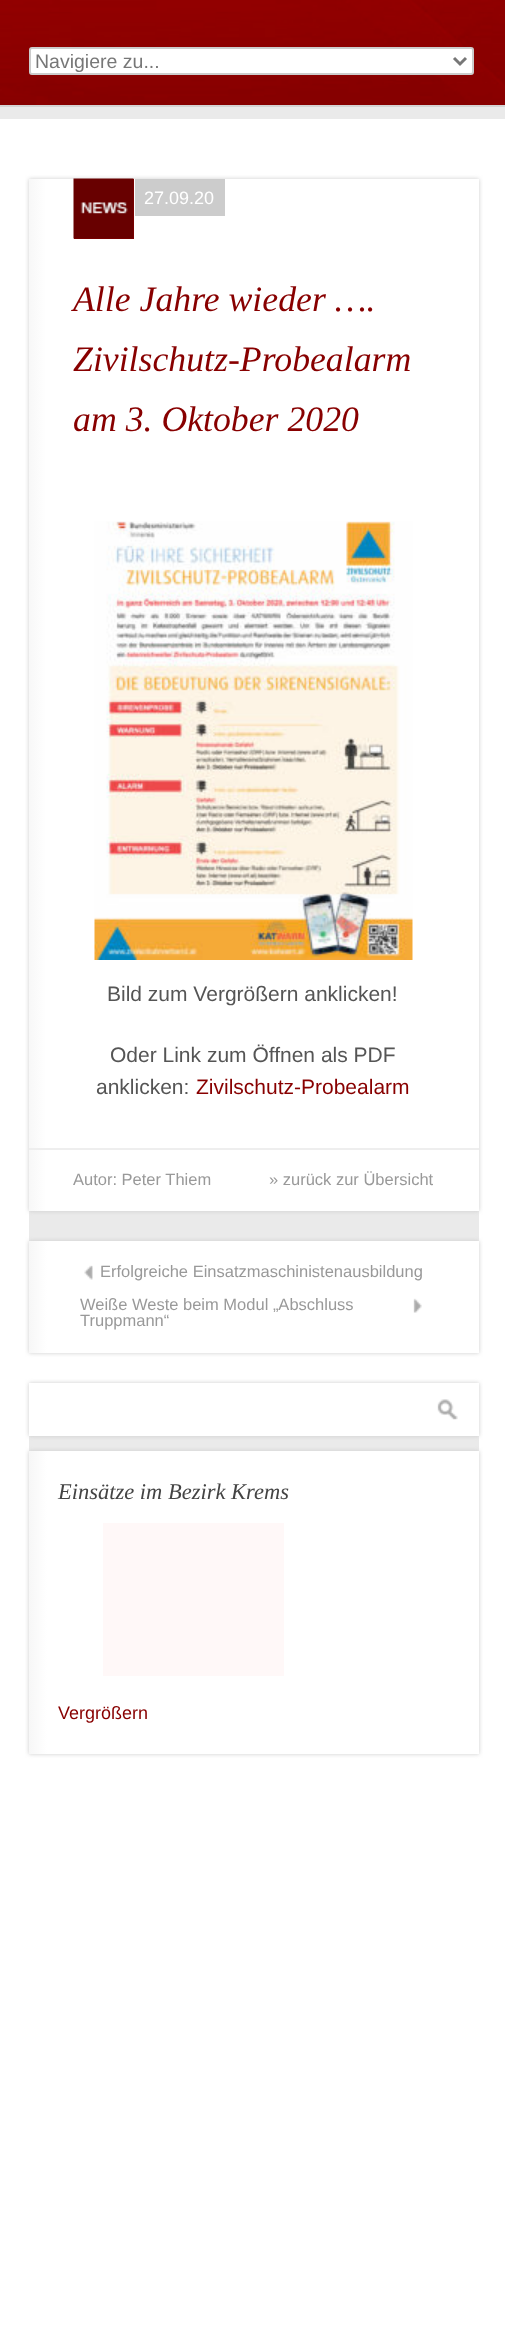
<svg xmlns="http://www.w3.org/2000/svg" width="505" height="2349">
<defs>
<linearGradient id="g1" gradientUnits="userSpaceOnUse" x1="28" y1="695" x2="479" y2="695"><stop offset="0" stop-color="#f7f7f7"/><stop offset="0.04" stop-color="#fff"/><stop offset="1" stop-color="#fff"/></linearGradient>
<linearGradient id="g2" gradientUnits="userSpaceOnUse" x1="29" y1="1297" x2="479" y2="1297"><stop offset="0" stop-color="#f7f7f7"/><stop offset="0.04" stop-color="#fff"/><stop offset="1" stop-color="#fff"/></linearGradient>
<linearGradient id="g3" gradientUnits="userSpaceOnUse" x1="29" y1="1602" x2="479" y2="1602"><stop offset="0" stop-color="#f7f7f7"/><stop offset="0.04" stop-color="#fff"/><stop offset="1" stop-color="#fff"/></linearGradient>
</defs>
<rect width="100%" height="100%" fill="#fff"/>
<rect y="107" width="505" height="12" fill="#eaeaea"/>
<image x="0" y="0" width="505" height="105" href="media/1.png"/>
<rect y="105" width="505" height="2" fill="#d4d4d4"/>
<rect x="30" y="48" width="443" height="26" rx="2" fill="#fff" stroke="#ccc" stroke-width="2"/>
<path d="M454 58l6 6l6-6" fill="none" stroke="#777" stroke-width="3"/>
<text x="35" y="68" style="font-family:Liberation Sans;font-size:19.5px;fill:#777">Navigiere zu...</text>
<rect x="29" y="1211" width="450" height="30" fill="#eaeaea"/>
<rect x="29" y="179" width="450" height="1032" fill="#ccc" filter="blur(2px)"/>
<rect x="29" y="179" width="450" height="1032" fill="url(#g1)"/>
<rect x="74" y="179" width="60" height="60" fill="#800"/>
<image x="73" y="178" width="61" height="61" href="media/2.png"/>
<rect x="135" y="179" width="90" height="37" fill="#ccc"/>
<text x="144" y="204" style="font-family:Liberation Sans;font-size:18px;fill:#fff">27.09.20</text>
<text x="73" y="311" style="font-family:Liberation Serif;font-size:35.75px;font-style:italic;fill:#800">Alle Jahre wieder ….</text>
<text x="73" y="371" style="font-family:Liberation Serif;font-size:35.75px;font-style:italic;fill:#800">Zivilschutz-Probealarm</text>
<text x="73" y="431" style="font-family:Liberation Serif;font-size:35.75px;font-style:italic;fill:#800">am 3. Oktober 2020</text>
<image x="94" y="521" width="319" height="439" href="media/3.png"/>
<text x="107" y="1001" style="font-family:Liberation Sans;font-size:21px;fill:#555">Bild zum Vergrößern anklicken!</text>
<text x="110" y="1062" style="font-family:Liberation Sans;font-size:21px;fill:#555">Oder Link zum Öffnen als PDF</text>
<text x="96" y="1094" style="font-family:Liberation Sans;font-size:21px;fill:#555">anklicken:</text>
<text x="196" y="1094" style="font-family:Liberation Sans;font-size:21px;fill:#800">Zivilschutz-Probealarm</text>
<rect x="29" y="1148" width="450" height="2" fill="#eee"/>
<text x="73" y="1185" style="font-family:Liberation Sans;font-size:16.5px;fill:#999">Autor: Peter Thiem</text>
<text x="269" y="1185" style="font-family:Liberation Sans;font-size:16.5px;fill:#999">» zurück zur Übersicht</text>
<rect x="29" y="1241" width="450" height="112" fill="#ccc" filter="blur(2px)"/>
<rect x="29" y="1241" width="450" height="112" fill="url(#g2)"/>
<image x="84" y="1265" width="9" height="15" href="media/4.png"/>
<text x="100" y="1277" style="font-family:Liberation Sans;font-size:16.5px;fill:#999">Erfolgreiche Einsatzmaschinistenausbildung</text>
<image x="413" y="1298" width="9" height="15" href="media/5.png"/>
<text x="80" y="1310" style="font-family:Liberation Sans;font-size:16.5px;fill:#999">Weiße Weste beim Modul „Abschluss</text>
<text x="80" y="1326" style="font-family:Liberation Sans;font-size:16.5px;fill:#999">Truppmann“</text>
<rect x="29" y="1436" width="450" height="15" fill="#eaeaea"/>
<rect x="29" y="1383" width="450" height="53" fill="#ccc" filter="blur(2px)"/>
<rect x="29" y="1383" width="450" height="53" fill="#fff"/>
<image x="437" y="1399" width="21" height="21" href="media/6.png"/>
<rect x="29" y="1451" width="450" height="303" fill="#ccc" filter="blur(2px)"/>
<rect x="29" y="1451" width="450" height="303" fill="url(#g3)"/>
<text x="58" y="1499" style="font-family:Liberation Serif;font-size:22.5px;font-style:italic;fill:#444">Einsätze im Bezirk Krems</text>
<rect x="103" y="1523" width="181" height="153" fill="#fff8f8"/>
<text x="58" y="1719" style="font-family:Liberation Sans;font-size:18px;fill:#800">Vergrößern</text>
</svg>
